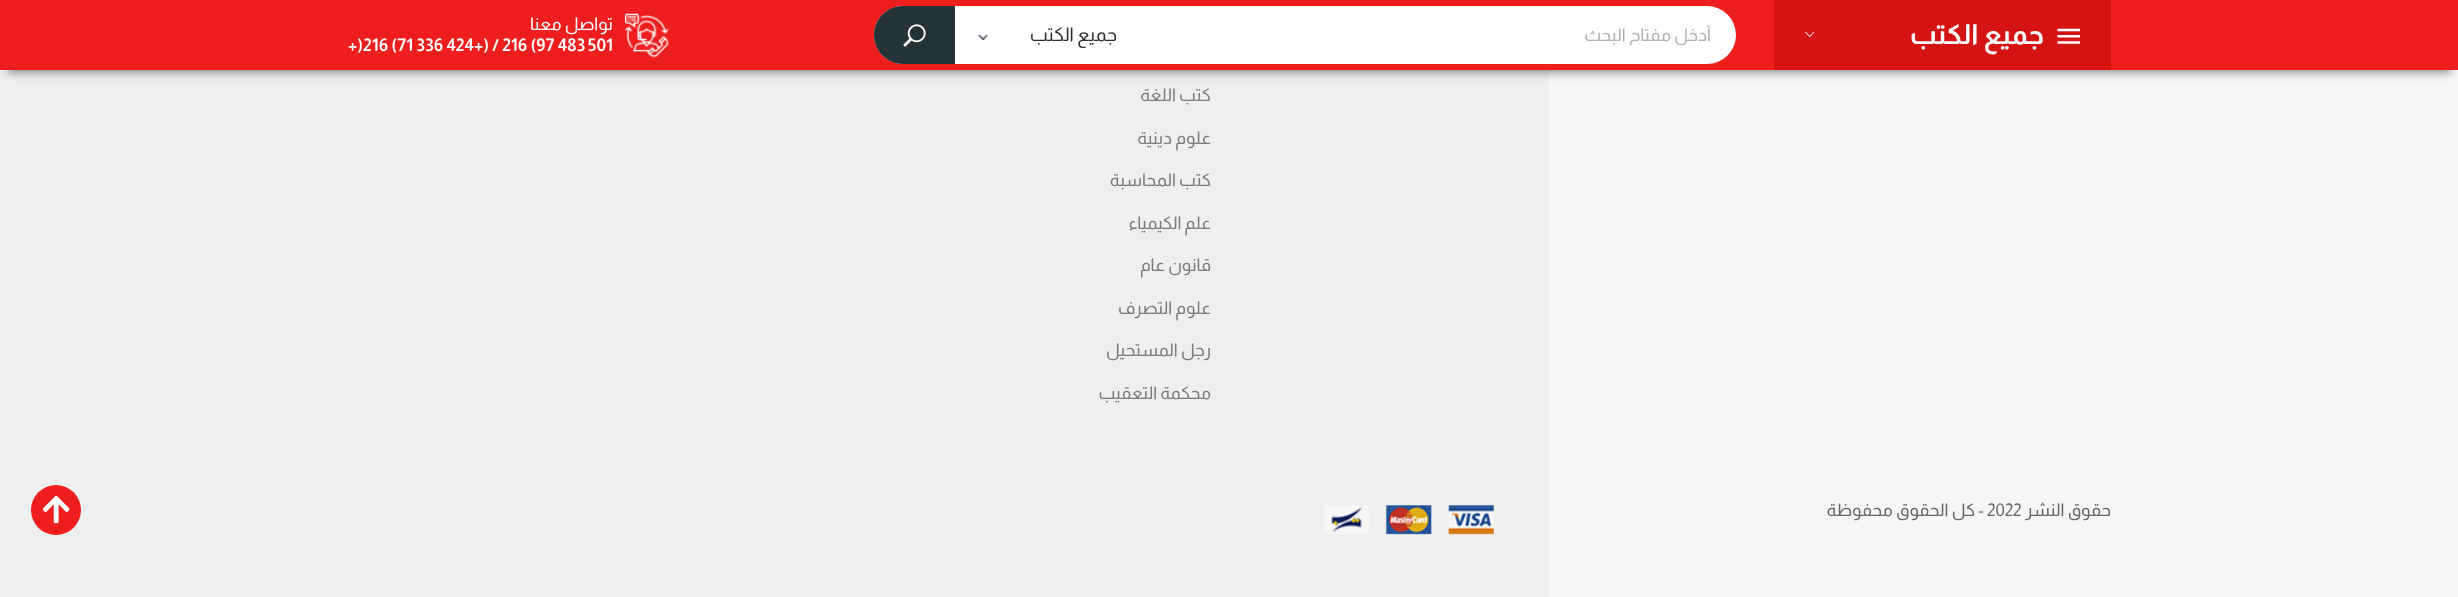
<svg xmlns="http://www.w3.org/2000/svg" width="2458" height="597">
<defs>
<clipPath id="clip1"><rect x="1149" y="25" width="562" height="20"/></clipPath>
</defs>
<rect width="100%" height="100%" fill="#efefef"/>
<rect x="1549" y="70" width="909" height="527" fill="#f6f6f6"/>
<rect x="8" y="18" width="2443" height="55" fill="#00000066" filter="blur(4px)"/>
<rect width="2458" height="70" fill="#ef1e1e"/>
<rect x="1774" width="337" height="70" fill="#d61313"/>
<image x="2057" y="28" width="23" height="16" href="media/1.png"/>
<text x="2044" y="44" style="font-family:Almarai;font-size:27.5px;font-weight:bold;direction:rtl;fill:#fff">جميع الكتب</text>
<image x="1805" y="31" width="10" height="7" href="media/2.png"/>
<rect x="874" y="6" width="862" height="58" rx="29" fill="#fff"/>
<g clip-path="url(#clip1)">
<text x="1711" y="41" style="font-family:Almarai;font-size:17.5px;direction:rtl;fill:#b1b1b1">أدخل مفتاح البحث</text>
</g>
<image x="978" y="35" width="10" height="5" href="media/3.png"/>
<text x="1117" y="41" style="font-family:Almarai;font-size:18.75px;direction:rtl;fill:#2e2e2e">جميع الكتب</text>
<path d="M903 6h52v58h-52c-16 0-29-13-29-29c0-16 13-29 29-29z" fill="#253237"/>
<image x="903" y="24" width="23" height="23" href="media/4.png"/>
<image x="625" y="13" width="44" height="45" href="media/5.png"/>
<text x="613" y="30" style="font-family:Almarai;font-size:17.5px;direction:rtl;fill:#fff">تواصل معنا</text>
<text x="474" y="51" style="font-family:Almarai;font-size:17.5px;font-weight:bold;fill:#fff">+) / 216 (97 483 501</text>
<text x="348" y="51" style="font-family:Almarai;font-size:17.5px;font-weight:bold;fill:#fff">+)216 (71 336 424</text>
<text x="1211" y="101" style="font-family:Almarai;font-size:17.5px;direction:rtl;fill:#7a7a7a">كتب اللغة</text>
<text x="1211" y="144" style="font-family:Almarai;font-size:17.5px;direction:rtl;fill:#7a7a7a">علوم دينية</text>
<text x="1211" y="186" style="font-family:Almarai;font-size:17.5px;direction:rtl;fill:#7a7a7a">كتب المحاسبة</text>
<text x="1211" y="229" style="font-family:Almarai;font-size:17.5px;direction:rtl;fill:#7a7a7a">علم الكيمياء</text>
<text x="1211" y="271" style="font-family:Almarai;font-size:17.5px;direction:rtl;fill:#7a7a7a">قانون عام</text>
<text x="1211" y="314" style="font-family:Almarai;font-size:17.5px;direction:rtl;fill:#7a7a7a">علوم التصرف</text>
<text x="1211" y="356" style="font-family:Almarai;font-size:17.5px;direction:rtl;fill:#7a7a7a">رجل المستحيل</text>
<text x="1211" y="399" style="font-family:Almarai;font-size:17.5px;direction:rtl;fill:#7a7a7a">محكمة التعقیب</text>
<text x="2111" y="516" style="font-family:Almarai;font-size:17.5px;direction:rtl;fill:#666">حقوق النشر</text>
<text x="1987" y="516" style="font-family:Almarai;font-size:17.5px;fill:#666">2022</text>
<text x="1984" y="516" style="font-family:Almarai;font-size:17.5px;direction:rtl;fill:#666">- كل الحقوق محفوظة</text>
<image x="1324" y="505" width="170" height="30" href="media/6.png"/>
<circle cx="56" cy="510" r="25" fill="#ef1e1e"/>
<image x="42" y="495" width="28" height="29" href="media/7.png"/>
</svg>
